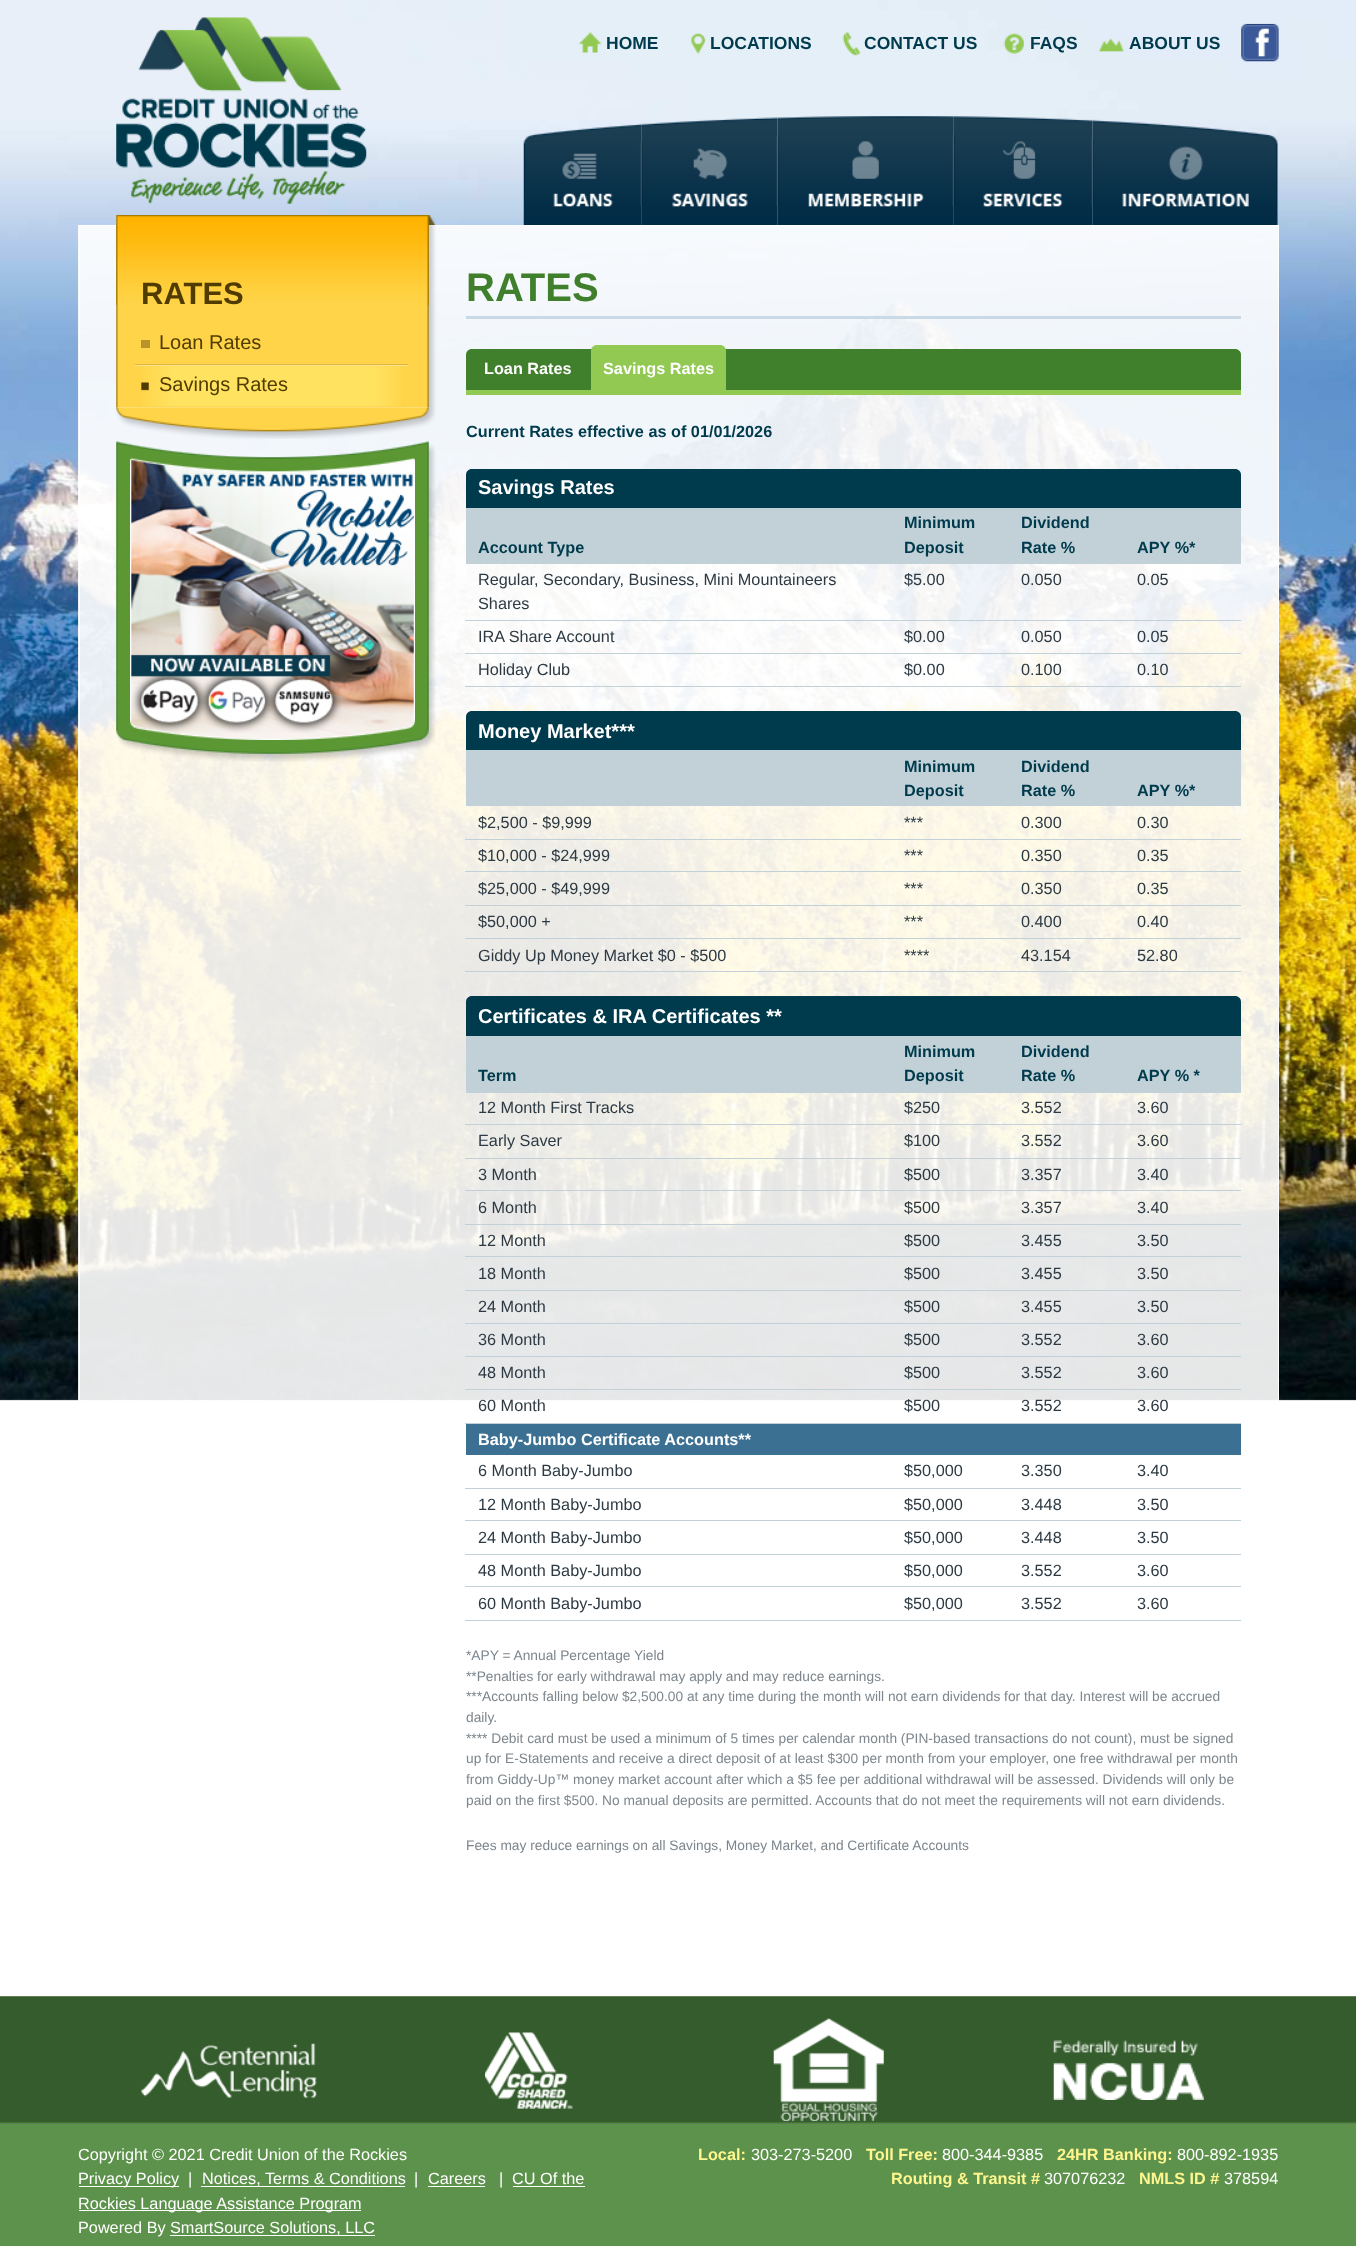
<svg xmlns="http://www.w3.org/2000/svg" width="1356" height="2246">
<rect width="100%" height="100%" fill="#fff"/>
<rect y="2124" width="1356" height="122" fill="#5c924b"/>
<image x="0" y="0" width="1356" height="1401" href="media/1.png"/>
<image x="116" y="17" width="251" height="187" href="media/2.png"/>
<image x="578" y="32" width="24" height="21" href="media/3.png"/>
<text x="606" y="49" style="font-family:Liberation Sans;font-size:17.5px;font-weight:bold;fill:#003b4d">HOME</text>
<image x="691" y="33" width="15" height="21" href="media/4.png"/>
<text x="710" y="49" style="font-family:Liberation Sans;font-size:17.5px;font-weight:bold;fill:#003b4d">LOCATIONS</text>
<image x="842" y="32" width="19" height="24" href="media/5.png"/>
<text x="864" y="49" style="font-family:Liberation Sans;font-size:17.5px;font-weight:bold;fill:#003b4d">CONTACT US</text>
<image x="1003" y="33" width="22" height="21" href="media/6.png"/>
<text x="1030" y="49" style="font-family:Liberation Sans;font-size:17.5px;font-weight:bold;fill:#003b4d">FAQS</text>
<image x="1098" y="38" width="26" height="14" href="media/7.png"/>
<text x="1129" y="49" style="font-family:Liberation Sans;font-size:17.5px;font-weight:bold;fill:#003b4d">ABOUT US</text>
<image x="1241" y="23" width="38" height="39" href="media/8.png"/>
<image x="523" y="123" width="119" height="102" href="media/9.png"/>
<image x="641" y="117" width="137" height="108" href="media/10.png"/>
<image x="777" y="116" width="177" height="109" href="media/11.png"/>
<image x="953" y="116" width="140" height="109" href="media/12.png"/>
<image x="1092" y="119" width="186" height="106" href="media/13.png"/>
<rect x="78" y="225" width="1200" height="1176" fill="#ffffffe6"/>
<rect x="79.5" y="225.5" width="1199" height="1655" fill="none" stroke="#fff"/>
<image x="116" y="215" width="320" height="10" href="media/14.png"/>
<image x="116" y="407" width="320" height="32" href="media/15.png"/>
<image x="116" y="225" width="320" height="183" href="media/16.png"/>
<image x="116" y="225" width="313" height="80" href="media/17.png"/>
<text x="141" y="304" style="font-family:Liberation Sans;font-size:31px;font-weight:bold;fill:#503b00">RATES</text>
<rect x="141" y="340" width="9" height="8" fill="#b9942e"/>
<rect x="135" y="364" width="273" height="1" fill="#e1b63f"/>
<text x="159" y="349" style="font-family:Liberation Sans;font-size:20px;fill:#503b00">Loan Rates</text>
<image x="141" y="366" width="260" height="41" href="media/18.png"/>
<rect x="135" y="365" width="273" height="1" fill="#ffe291"/>
<text x="159" y="391" style="font-family:Liberation Sans;font-size:20px;fill:#503b00">Savings Rates</text>
<image x="116" y="441" width="320" height="321" href="media/19.png"/>
<image x="130" y="457" width="285" height="283" href="media/20.png"/>
<rect x="466" y="316" width="775" height="3" fill="#c9dae6"/>
<text x="466" y="301" style="font-family:Liberation Sans;font-size:40px;font-weight:bold;fill:#407f2b">RATES</text>
<path d="M472 349h763c3.5 0 6 2.5 6 6v40h-775v-40c0-3.5 2.5-6 6-6z" fill="#407f2b"/>
<rect x="466" y="390" width="775" height="5" fill="#91c952"/>
<text x="484" y="374" style="font-family:Liberation Sans;font-size:16.25px;font-weight:bold;fill:#fff">Loan Rates</text>
<path d="M597 345h123c3.5 0 6 2.5 6 6v39h-135v-39c0-3.5 2.5-6 6-6z" fill="#91c952"/>
<text x="603" y="374" style="font-family:Liberation Sans;font-size:16.25px;font-weight:bold;fill:#fff">Savings Rates</text>
<text x="466" y="437" style="font-family:Liberation Sans;font-size:16.25px;font-weight:bold;fill:#003b4d">Current Rates effective as of 01/01/2026</text>
<path d="M472 469h763c3.5 0 6 2.5 6 6v33h-775v-33c0-3.5 2.5-6 6-6z" fill="#003b4d"/>
<text x="478" y="494" style="font-family:Liberation Sans;font-size:20px;font-weight:bold;fill:#fff">Savings Rates</text>
<rect x="466" y="508" width="775" height="56" fill="#c2d1d8"/>
<text x="478" y="553" style="font-family:Liberation Sans;font-size:16.25px;font-weight:bold;fill:#003b4d">Account Type</text>
<text x="904" y="528" style="font-family:Liberation Sans;font-size:16.25px;font-weight:bold;fill:#003b4d">Minimum</text>
<text x="904" y="553" style="font-family:Liberation Sans;font-size:16.25px;font-weight:bold;fill:#003b4d">Deposit</text>
<text x="1021" y="528" style="font-family:Liberation Sans;font-size:16.25px;font-weight:bold;fill:#003b4d">Dividend</text>
<text x="1021" y="553" style="font-family:Liberation Sans;font-size:16.25px;font-weight:bold;fill:#003b4d">Rate %</text>
<text x="1137" y="553" style="font-family:Liberation Sans;font-size:16.25px;font-weight:bold;fill:#003b4d">APY %*</text>
<text x="478" y="585" style="font-family:Liberation Sans;font-size:16.25px;fill:#2d3a43">Regular, Secondary, Business, Mini Mountaineers</text>
<text x="478" y="609" style="font-family:Liberation Sans;font-size:16.25px;fill:#2d3a43">Shares</text>
<text x="904" y="585" style="font-family:Liberation Sans;font-size:16.25px;fill:#2d3a43">$5.00</text>
<text x="1021" y="585" style="font-family:Liberation Sans;font-size:16.25px;fill:#2d3a43">0.050</text>
<rect x="465" y="620" width="776" height="1" fill="#c2d1d8"/>
<text x="1137" y="585" style="font-family:Liberation Sans;font-size:16.25px;fill:#2d3a43">0.05</text>
<text x="478" y="642" style="font-family:Liberation Sans;font-size:16.25px;fill:#2d3a43">IRA Share Account</text>
<text x="904" y="642" style="font-family:Liberation Sans;font-size:16.25px;fill:#2d3a43">$0.00</text>
<text x="1021" y="642" style="font-family:Liberation Sans;font-size:16.25px;fill:#2d3a43">0.050</text>
<rect x="465" y="653" width="776" height="1" fill="#c2d1d8"/>
<text x="1137" y="642" style="font-family:Liberation Sans;font-size:16.25px;fill:#2d3a43">0.05</text>
<text x="478" y="675" style="font-family:Liberation Sans;font-size:16.25px;fill:#2d3a43">Holiday Club</text>
<text x="904" y="675" style="font-family:Liberation Sans;font-size:16.25px;fill:#2d3a43">$0.00</text>
<text x="1021" y="675" style="font-family:Liberation Sans;font-size:16.25px;fill:#2d3a43">0.100</text>
<rect x="465" y="686" width="776" height="1" fill="#c2d1d8"/>
<text x="1137" y="675" style="font-family:Liberation Sans;font-size:16.25px;fill:#2d3a43">0.10</text>
<path d="M472 711h763c3.5 0 6 2.5 6 6v33h-775v-33c0-3.5 2.5-6 6-6z" fill="#003b4d"/>
<text x="478" y="738" style="font-family:Liberation Sans;font-size:20px;font-weight:bold;fill:#fff">Money Market***</text>
<rect x="466" y="750" width="775" height="56" fill="#c2d1d8"/>
<text x="904" y="772" style="font-family:Liberation Sans;font-size:16.25px;font-weight:bold;fill:#003b4d">Minimum</text>
<text x="904" y="796" style="font-family:Liberation Sans;font-size:16.25px;font-weight:bold;fill:#003b4d">Deposit</text>
<text x="1021" y="772" style="font-family:Liberation Sans;font-size:16.25px;font-weight:bold;fill:#003b4d">Dividend</text>
<text x="1021" y="796" style="font-family:Liberation Sans;font-size:16.25px;font-weight:bold;fill:#003b4d">Rate %</text>
<text x="1137" y="796" style="font-family:Liberation Sans;font-size:16.25px;font-weight:bold;fill:#003b4d">APY %*</text>
<text x="478" y="828" style="font-family:Liberation Sans;font-size:16.25px;fill:#2d3a43">$2,500 - $9,999</text>
<text x="904" y="828" style="font-family:Liberation Sans;font-size:16.25px;fill:#2d3a43">***</text>
<text x="1021" y="828" style="font-family:Liberation Sans;font-size:16.25px;fill:#2d3a43">0.300</text>
<rect x="465" y="839" width="776" height="1" fill="#c2d1d8"/>
<text x="1137" y="828" style="font-family:Liberation Sans;font-size:16.25px;fill:#2d3a43">0.30</text>
<text x="478" y="861" style="font-family:Liberation Sans;font-size:16.25px;fill:#2d3a43">$10,000 - $24,999</text>
<text x="904" y="861" style="font-family:Liberation Sans;font-size:16.25px;fill:#2d3a43">***</text>
<text x="1021" y="861" style="font-family:Liberation Sans;font-size:16.25px;fill:#2d3a43">0.350</text>
<rect x="465" y="871" width="776" height="1" fill="#c2d1d8"/>
<text x="1137" y="861" style="font-family:Liberation Sans;font-size:16.25px;fill:#2d3a43">0.35</text>
<text x="478" y="894" style="font-family:Liberation Sans;font-size:16.25px;fill:#2d3a43">$25,000 - $49,999</text>
<text x="904" y="894" style="font-family:Liberation Sans;font-size:16.25px;fill:#2d3a43">***</text>
<text x="1021" y="894" style="font-family:Liberation Sans;font-size:16.25px;fill:#2d3a43">0.350</text>
<rect x="465" y="905" width="776" height="1" fill="#c2d1d8"/>
<text x="1137" y="894" style="font-family:Liberation Sans;font-size:16.25px;fill:#2d3a43">0.35</text>
<text x="478" y="927" style="font-family:Liberation Sans;font-size:16.25px;fill:#2d3a43">$50,000 +</text>
<text x="904" y="927" style="font-family:Liberation Sans;font-size:16.25px;fill:#2d3a43">***</text>
<text x="1021" y="927" style="font-family:Liberation Sans;font-size:16.25px;fill:#2d3a43">0.400</text>
<rect x="465" y="938" width="776" height="1" fill="#c2d1d8"/>
<text x="1137" y="927" style="font-family:Liberation Sans;font-size:16.25px;fill:#2d3a43">0.40</text>
<text x="478" y="961" style="font-family:Liberation Sans;font-size:16.25px;fill:#2d3a43">Giddy Up Money Market $0 - $500</text>
<text x="904" y="961" style="font-family:Liberation Sans;font-size:16.25px;fill:#2d3a43">****</text>
<text x="1021" y="961" style="font-family:Liberation Sans;font-size:16.25px;fill:#2d3a43">43.154</text>
<rect x="465" y="971" width="776" height="1" fill="#c2d1d8"/>
<text x="1137" y="961" style="font-family:Liberation Sans;font-size:16.25px;fill:#2d3a43">52.80</text>
<path d="M472 996h763c3.5 0 6 2.5 6 6v34h-775v-34c0-3.5 2.5-6 6-6z" fill="#003b4d"/>
<text x="478" y="1023" style="font-family:Liberation Sans;font-size:20px;font-weight:bold;fill:#fff">Certificates &amp; IRA Certificates **</text>
<rect x="466" y="1036" width="775" height="57" fill="#c2d1d8"/>
<text x="478" y="1081" style="font-family:Liberation Sans;font-size:16.25px;font-weight:bold;fill:#003b4d">Term</text>
<text x="904" y="1057" style="font-family:Liberation Sans;font-size:16.25px;font-weight:bold;fill:#003b4d">Minimum</text>
<text x="904" y="1081" style="font-family:Liberation Sans;font-size:16.25px;font-weight:bold;fill:#003b4d">Deposit</text>
<text x="1021" y="1057" style="font-family:Liberation Sans;font-size:16.25px;font-weight:bold;fill:#003b4d">Dividend</text>
<text x="1021" y="1081" style="font-family:Liberation Sans;font-size:16.25px;font-weight:bold;fill:#003b4d">Rate %</text>
<text x="1137" y="1081" style="font-family:Liberation Sans;font-size:16.25px;font-weight:bold;fill:#003b4d">APY % *</text>
<text x="478" y="1113" style="font-family:Liberation Sans;font-size:16.25px;fill:#2d3a43">12 Month First Tracks</text>
<text x="904" y="1113" style="font-family:Liberation Sans;font-size:16.25px;fill:#2d3a43">$250</text>
<text x="1021" y="1113" style="font-family:Liberation Sans;font-size:16.25px;fill:#2d3a43">3.552</text>
<rect x="465" y="1124" width="776" height="1" fill="#c2d1d8"/>
<text x="1137" y="1113" style="font-family:Liberation Sans;font-size:16.25px;fill:#2d3a43">3.60</text>
<text x="478" y="1146" style="font-family:Liberation Sans;font-size:16.25px;fill:#2d3a43">Early Saver</text>
<text x="904" y="1146" style="font-family:Liberation Sans;font-size:16.25px;fill:#2d3a43">$100</text>
<text x="1021" y="1146" style="font-family:Liberation Sans;font-size:16.25px;fill:#2d3a43">3.552</text>
<rect x="465" y="1158" width="776" height="1" fill="#c2d1d8"/>
<text x="1137" y="1146" style="font-family:Liberation Sans;font-size:16.25px;fill:#2d3a43">3.60</text>
<text x="478" y="1180" style="font-family:Liberation Sans;font-size:16.25px;fill:#2d3a43">3 Month</text>
<text x="904" y="1180" style="font-family:Liberation Sans;font-size:16.25px;fill:#2d3a43">$500</text>
<text x="1021" y="1180" style="font-family:Liberation Sans;font-size:16.25px;fill:#2d3a43">3.357</text>
<rect x="465" y="1190" width="776" height="1" fill="#c2d1d8"/>
<text x="1137" y="1180" style="font-family:Liberation Sans;font-size:16.25px;fill:#2d3a43">3.40</text>
<text x="478" y="1213" style="font-family:Liberation Sans;font-size:16.25px;fill:#2d3a43">6 Month</text>
<text x="904" y="1213" style="font-family:Liberation Sans;font-size:16.25px;fill:#2d3a43">$500</text>
<text x="1021" y="1213" style="font-family:Liberation Sans;font-size:16.25px;fill:#2d3a43">3.357</text>
<rect x="465" y="1224" width="776" height="1" fill="#c2d1d8"/>
<text x="1137" y="1213" style="font-family:Liberation Sans;font-size:16.25px;fill:#2d3a43">3.40</text>
<text x="478" y="1246" style="font-family:Liberation Sans;font-size:16.25px;fill:#2d3a43">12 Month</text>
<text x="904" y="1246" style="font-family:Liberation Sans;font-size:16.25px;fill:#2d3a43">$500</text>
<text x="1021" y="1246" style="font-family:Liberation Sans;font-size:16.25px;fill:#2d3a43">3.455</text>
<rect x="465" y="1256" width="776" height="1" fill="#c2d1d8"/>
<text x="1137" y="1246" style="font-family:Liberation Sans;font-size:16.25px;fill:#2d3a43">3.50</text>
<text x="478" y="1279" style="font-family:Liberation Sans;font-size:16.25px;fill:#2d3a43">18 Month</text>
<text x="904" y="1279" style="font-family:Liberation Sans;font-size:16.25px;fill:#2d3a43">$500</text>
<text x="1021" y="1279" style="font-family:Liberation Sans;font-size:16.25px;fill:#2d3a43">3.455</text>
<rect x="465" y="1290" width="776" height="1" fill="#c2d1d8"/>
<text x="1137" y="1279" style="font-family:Liberation Sans;font-size:16.25px;fill:#2d3a43">3.50</text>
<text x="478" y="1312" style="font-family:Liberation Sans;font-size:16.25px;fill:#2d3a43">24 Month</text>
<text x="904" y="1312" style="font-family:Liberation Sans;font-size:16.25px;fill:#2d3a43">$500</text>
<text x="1021" y="1312" style="font-family:Liberation Sans;font-size:16.25px;fill:#2d3a43">3.455</text>
<rect x="465" y="1323" width="776" height="1" fill="#c2d1d8"/>
<text x="1137" y="1312" style="font-family:Liberation Sans;font-size:16.25px;fill:#2d3a43">3.50</text>
<text x="478" y="1345" style="font-family:Liberation Sans;font-size:16.25px;fill:#2d3a43">36 Month</text>
<text x="904" y="1345" style="font-family:Liberation Sans;font-size:16.25px;fill:#2d3a43">$500</text>
<text x="1021" y="1345" style="font-family:Liberation Sans;font-size:16.25px;fill:#2d3a43">3.552</text>
<rect x="465" y="1356" width="776" height="1" fill="#c2d1d8"/>
<text x="1137" y="1345" style="font-family:Liberation Sans;font-size:16.25px;fill:#2d3a43">3.60</text>
<text x="478" y="1378" style="font-family:Liberation Sans;font-size:16.25px;fill:#2d3a43">48 Month</text>
<text x="904" y="1378" style="font-family:Liberation Sans;font-size:16.25px;fill:#2d3a43">$500</text>
<text x="1021" y="1378" style="font-family:Liberation Sans;font-size:16.25px;fill:#2d3a43">3.552</text>
<rect x="465" y="1389" width="776" height="1" fill="#c2d1d8"/>
<text x="1137" y="1378" style="font-family:Liberation Sans;font-size:16.25px;fill:#2d3a43">3.60</text>
<text x="478" y="1411" style="font-family:Liberation Sans;font-size:16.25px;fill:#2d3a43">60 Month</text>
<text x="904" y="1411" style="font-family:Liberation Sans;font-size:16.25px;fill:#2d3a43">$500</text>
<text x="1021" y="1411" style="font-family:Liberation Sans;font-size:16.25px;fill:#2d3a43">3.552</text>
<rect x="465" y="1423" width="776" height="1" fill="#c2d1d8"/>
<text x="1137" y="1411" style="font-family:Liberation Sans;font-size:16.25px;fill:#2d3a43">3.60</text>
<rect x="466" y="1424" width="775" height="31" fill="#3c7093"/>
<text x="478" y="1445" style="font-family:Liberation Sans;font-size:16.25px;font-weight:bold;fill:#fff">Baby-Jumbo Certificate Accounts**</text>
<text x="478" y="1476" style="font-family:Liberation Sans;font-size:16.25px;fill:#2d3a43">6 Month Baby-Jumbo</text>
<text x="904" y="1476" style="font-family:Liberation Sans;font-size:16.25px;fill:#2d3a43">$50,000</text>
<text x="1021" y="1476" style="font-family:Liberation Sans;font-size:16.25px;fill:#2d3a43">3.350</text>
<rect x="465" y="1488" width="776" height="1" fill="#c2d1d8"/>
<text x="1137" y="1476" style="font-family:Liberation Sans;font-size:16.25px;fill:#2d3a43">3.40</text>
<text x="478" y="1510" style="font-family:Liberation Sans;font-size:16.25px;fill:#2d3a43">12 Month Baby-Jumbo</text>
<text x="904" y="1510" style="font-family:Liberation Sans;font-size:16.25px;fill:#2d3a43">$50,000</text>
<text x="1021" y="1510" style="font-family:Liberation Sans;font-size:16.25px;fill:#2d3a43">3.448</text>
<rect x="465" y="1520" width="776" height="1" fill="#c2d1d8"/>
<text x="1137" y="1510" style="font-family:Liberation Sans;font-size:16.25px;fill:#2d3a43">3.50</text>
<text x="478" y="1543" style="font-family:Liberation Sans;font-size:16.25px;fill:#2d3a43">24 Month Baby-Jumbo</text>
<text x="904" y="1543" style="font-family:Liberation Sans;font-size:16.25px;fill:#2d3a43">$50,000</text>
<text x="1021" y="1543" style="font-family:Liberation Sans;font-size:16.25px;fill:#2d3a43">3.448</text>
<rect x="465" y="1554" width="776" height="1" fill="#c2d1d8"/>
<text x="1137" y="1543" style="font-family:Liberation Sans;font-size:16.25px;fill:#2d3a43">3.50</text>
<text x="478" y="1576" style="font-family:Liberation Sans;font-size:16.25px;fill:#2d3a43">48 Month Baby-Jumbo</text>
<text x="904" y="1576" style="font-family:Liberation Sans;font-size:16.25px;fill:#2d3a43">$50,000</text>
<text x="1021" y="1576" style="font-family:Liberation Sans;font-size:16.25px;fill:#2d3a43">3.552</text>
<rect x="465" y="1586" width="776" height="1" fill="#c2d1d8"/>
<text x="1137" y="1576" style="font-family:Liberation Sans;font-size:16.25px;fill:#2d3a43">3.60</text>
<text x="478" y="1609" style="font-family:Liberation Sans;font-size:16.25px;fill:#2d3a43">60 Month Baby-Jumbo</text>
<text x="904" y="1609" style="font-family:Liberation Sans;font-size:16.25px;fill:#2d3a43">$50,000</text>
<text x="1021" y="1609" style="font-family:Liberation Sans;font-size:16.25px;fill:#2d3a43">3.552</text>
<rect x="465" y="1620" width="776" height="1" fill="#c2d1d8"/>
<text x="1137" y="1609" style="font-family:Liberation Sans;font-size:16.25px;fill:#2d3a43">3.60</text>
<text x="466" y="1660" style="font-family:Liberation Sans;font-size:13.75px;fill:#7d868d">*APY = Annual Percentage Yield</text>
<text x="466" y="1681" style="font-family:Liberation Sans;font-size:13.75px;fill:#7d868d">**Penalties for early withdrawal may apply and may reduce earnings.</text>
<text x="466" y="1701" style="font-family:Liberation Sans;font-size:13.75px;fill:#7d868d">***Accounts falling below $2,500.00 at any time during the month will not earn dividends for that day. Interest will be accrued</text>
<text x="466" y="1722" style="font-family:Liberation Sans;font-size:13.75px;fill:#7d868d">daily.</text>
<text x="466" y="1743" style="font-family:Liberation Sans;font-size:13.75px;fill:#7d868d">**** Debit card must be used a minimum of 5 times per calendar month (PIN-based transactions do not count), must be signed</text>
<text x="466" y="1763" style="font-family:Liberation Sans;font-size:13.75px;fill:#7d868d">up for E-Statements and receive a direct deposit of at least $300 per month from your employer, one free withdrawal per month</text>
<text x="466" y="1784" style="font-family:Liberation Sans;font-size:13.75px;fill:#7d868d">from Giddy-Up™ money market account after which a $5 fee per additional withdrawal will be assessed. Dividends will only be</text>
<text x="466" y="1805" style="font-family:Liberation Sans;font-size:13.75px;fill:#7d868d">paid on the first $500. No manual deposits are permitted. Accounts that do not meet the requirements will not earn dividends.</text>
<text x="466" y="1850" style="font-family:Liberation Sans;font-size:13.75px;fill:#7d868d">Fees may reduce earnings on all Savings, Money Market, and Certificate Accounts</text>
<rect y="1997" width="1356" height="125" fill="#345c2c"/>
<rect y="2122" width="1356" height="1" fill="#3d7a2b"/>
<rect y="1996" width="1356" height="1" fill="#5f7c55"/>
<image x="141" y="2043" width="176" height="55" href="media/21.png"/>
<image x="485" y="2032" width="88" height="77" href="media/22.png"/>
<image x="773" y="2018" width="111" height="104" href="media/23.png"/>
<image x="1053" y="2040" width="151" height="60" href="media/24.png"/>
<rect y="2123" width="1356" height="1" fill="#5f7c55"/>
<text x="78" y="2160" style="font-family:Liberation Sans;font-size:16.25px;fill:#fff">Copyright © 2021 Credit Union of the Rockies</text>
<rect x="79" y="2186" width="100" height="1" fill="#fff"/>
<text x="78" y="2184" style="font-family:Liberation Sans;font-size:16.25px;fill:#fff">Privacy Policy</text>
<text x="188" y="2184" style="font-family:Liberation Sans;font-size:16.25px;fill:#fff">|</text>
<rect x="201" y="2186" width="204" height="1" fill="#fff"/>
<text x="202" y="2184" style="font-family:Liberation Sans;font-size:16.25px;fill:#fff">Notices, Terms &amp; Conditions</text>
<text x="414" y="2184" style="font-family:Liberation Sans;font-size:16.25px;fill:#fff">|</text>
<text x="428" y="2184" style="font-family:Liberation Sans;font-size:16.25px;fill:#fff">Careers</text>
<rect x="428" y="2186" width="57" height="1" fill="#fff"/>
<text x="499" y="2184" style="font-family:Liberation Sans;font-size:16.25px;fill:#fff">|</text>
<text x="512" y="2184" style="font-family:Liberation Sans;font-size:16.25px;fill:#fff">CU Of the</text>
<rect x="513" y="2186" width="72" height="1" fill="#fff"/>
<rect x="79" y="2210" width="282" height="1" fill="#fff"/>
<text x="78" y="2209" style="font-family:Liberation Sans;font-size:16.25px;fill:#fff">Rockies Language Assistance Program</text>
<text x="78" y="2233" style="font-family:Liberation Sans;font-size:16.25px;fill:#fff">Powered By</text>
<rect x="170" y="2235" width="205" height="1" fill="#fff"/>
<text x="170" y="2233" style="font-family:Liberation Sans;font-size:16.25px;fill:#fff">SmartSource Solutions, LLC</text>
<text x="698" y="2160" style="font-family:Liberation Sans;font-size:16.25px;font-weight:bold;fill:#fff68f">Local:</text>
<text x="751" y="2160" style="font-family:Liberation Sans;font-size:16.25px;fill:#fff">303-273-5200</text>
<text x="866" y="2160" style="font-family:Liberation Sans;font-size:16.25px;font-weight:bold;fill:#fff68f">Toll Free:</text>
<text x="942" y="2160" style="font-family:Liberation Sans;font-size:16.25px;fill:#fff">800-344-9385</text>
<text x="1057" y="2160" style="font-family:Liberation Sans;font-size:16.25px;font-weight:bold;fill:#fff68f">24HR Banking:</text>
<text x="1177" y="2160" style="font-family:Liberation Sans;font-size:16.25px;fill:#fff">800-892-1935</text>
<text x="891" y="2184" style="font-family:Liberation Sans;font-size:16.25px;font-weight:bold;fill:#fff68f">Routing &amp; Transit #</text>
<text x="1044" y="2184" style="font-family:Liberation Sans;font-size:16.25px;fill:#fff">307076232</text>
<text x="1139" y="2184" style="font-family:Liberation Sans;font-size:16.25px;font-weight:bold;fill:#fff68f">NMLS ID #</text>
<text x="1224" y="2184" style="font-family:Liberation Sans;font-size:16.25px;fill:#fff">378594</text>
</svg>
